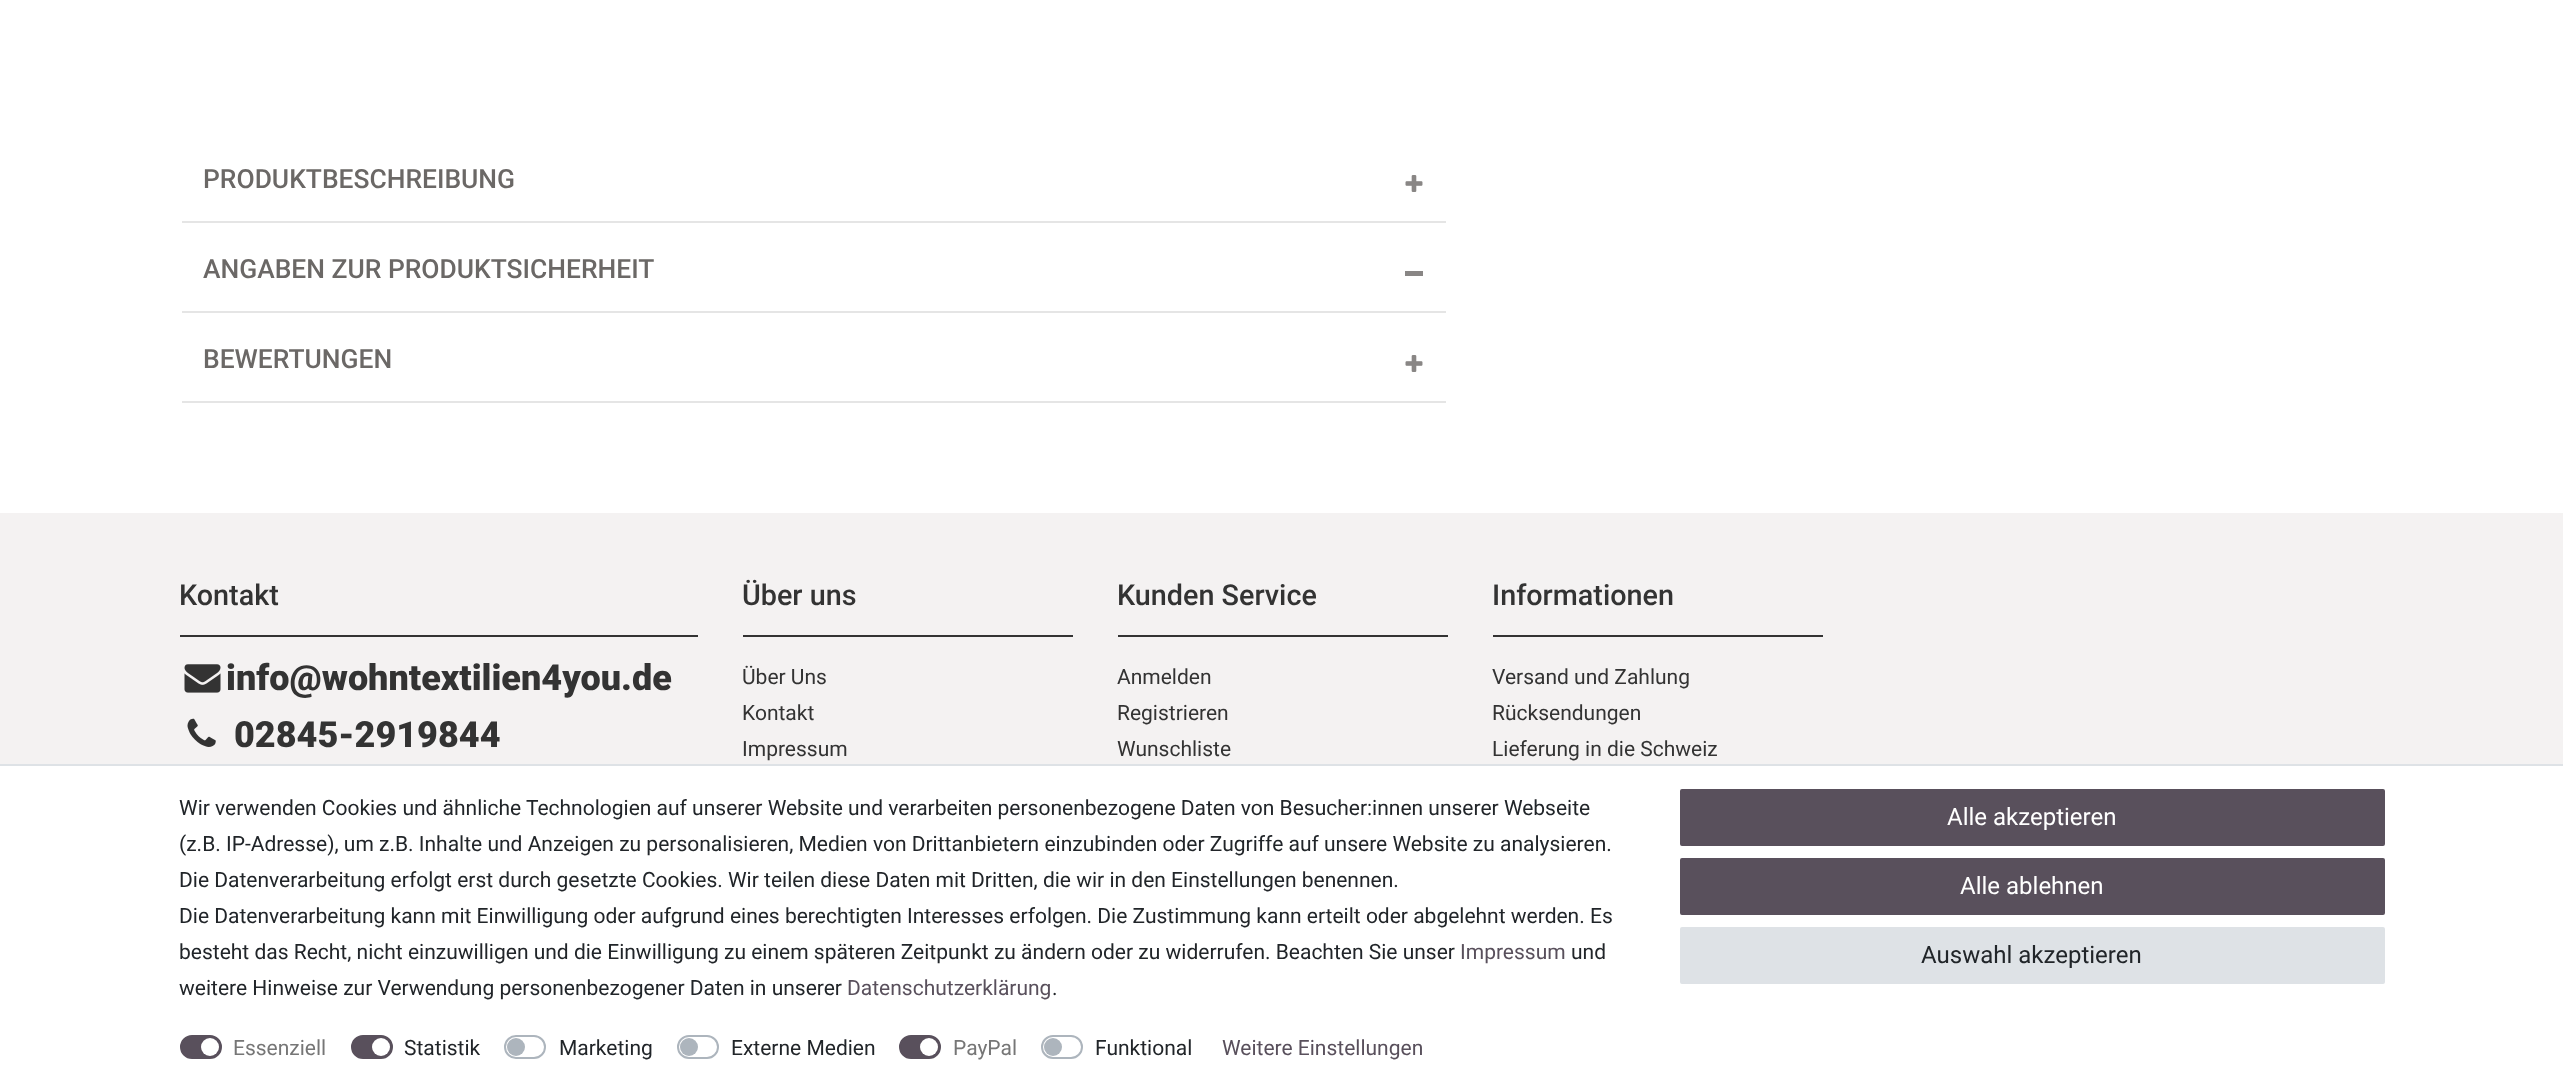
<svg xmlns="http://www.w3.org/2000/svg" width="2563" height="1089">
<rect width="100%" height="100%" fill="#fff"/>
<rect x="182" y="221" width="1264" height="2" fill="#e5e5e5"/>
<text x="203" y="188" style="font-family:Roboto;font-size:26.4px;font-weight:500;fill:#6b6866">PRODUKTBESCHREIBUNG</text>
<image x="1405" y="175" width="18" height="17" href="media/1.png"/>
<rect x="182" y="311" width="1264" height="2" fill="#e5e5e5"/>
<text x="203" y="278" style="font-family:Roboto;font-size:26.4px;font-weight:500;fill:#6b6866">ANGABEN ZUR PRODUKTSICHERHEIT</text>
<rect x="1405" y="271" width="18" height="5" fill="#898685"/>
<rect x="182" y="401" width="1264" height="2" fill="#e5e5e5"/>
<text x="203" y="368" style="font-family:Roboto;font-size:26.4px;font-weight:500;fill:#6b6866">BEWERTUNGEN</text>
<image x="1405" y="355" width="18" height="17" href="media/1.png"/>
<rect y="513" width="2563" height="251" fill="#f4f2f2"/>
<rect x="180" y="635" width="518" height="2" fill="#333"/>
<text x="179" y="605" style="font-family:Roboto;font-size:28.75px;font-weight:500;fill:#333">Kontakt</text>
<image x="184" y="664" width="37" height="29" href="media/2.png"/>
<text x="226" y="690" style="font-family:Roboto;font-size:36px;font-weight:900;fill:#333">info@wohntextilien4you.de</text>
<image x="187" y="718" width="29" height="29" href="media/3.png"/>
<text x="234" y="747" style="font-family:Roboto;font-size:36px;font-weight:900;fill:#333">02845-2919844</text>
<rect x="743" y="635" width="330" height="2" fill="#333"/>
<text x="742" y="605" style="font-family:Roboto;font-size:28.75px;font-weight:500;fill:#333">Über uns</text>
<text x="742" y="684" style="font-family:Roboto;font-size:21px;fill:#333">Über Uns</text>
<text x="742" y="720" style="font-family:Roboto;font-size:21px;fill:#333">Kontakt</text>
<text x="742" y="756" style="font-family:Roboto;font-size:21px;fill:#333">Impressum</text>
<rect x="1118" y="635" width="330" height="2" fill="#333"/>
<text x="1117" y="605" style="font-family:Roboto;font-size:28.75px;font-weight:500;fill:#333">Kunden Service</text>
<text x="1117" y="684" style="font-family:Roboto;font-size:21px;fill:#333">Anmelden</text>
<text x="1117" y="720" style="font-family:Roboto;font-size:21px;fill:#333">Registrieren</text>
<text x="1117" y="756" style="font-family:Roboto;font-size:21px;fill:#333">Wunschliste</text>
<rect x="1493" y="635" width="330" height="2" fill="#333"/>
<text x="1492" y="605" style="font-family:Roboto;font-size:28.75px;font-weight:500;fill:#333">Informationen</text>
<text x="1492" y="684" style="font-family:Roboto;font-size:21px;fill:#333">Versand und Zahlung</text>
<text x="1492" y="720" style="font-family:Roboto;font-size:21px;fill:#333">Rücksendungen</text>
<text x="1492" y="756" style="font-family:Roboto;font-size:21px;fill:#333">Lieferung in die Schweiz</text>
<rect y="764" width="2563" height="2" fill="#dee2e6"/>
<text x="179" y="815" style="font-family:Roboto;font-size:21px;fill:#212529">Wir verwenden Cookies und ähnliche Technologien auf unserer Website und verarbeiten personenbezogene Daten von Besucher:innen unserer Webseite</text>
<text x="179" y="851" style="font-family:Roboto;font-size:21px;fill:#212529">(z.B. IP-Adresse), um z.B. Inhalte und Anzeigen zu personalisieren, Medien von Drittanbietern einzubinden oder Zugriffe auf unsere Website zu analysieren.</text>
<text x="179" y="887" style="font-family:Roboto;font-size:21px;fill:#212529">Die Datenverarbeitung erfolgt erst durch gesetzte Cookies. Wir teilen diese Daten mit Dritten, die wir in den Einstellungen benennen.</text>
<text x="179" y="923" style="font-family:Roboto;font-size:21px;fill:#212529">Die Datenverarbeitung kann mit Einwilligung oder aufgrund eines berechtigten Interesses erfolgen. Die Zustimmung kann erteilt oder abgelehnt werden. Es</text>
<text x="179" y="959" style="font-family:Roboto;font-size:21px;fill:#212529">besteht das Recht, nicht einzuwilligen und die Einwilligung zu einem späteren Zeitpunkt zu ändern oder zu widerrufen. Beachten Sie unser</text>
<text x="1460" y="959" style="font-family:Roboto;font-size:21px;fill:#59505c">Impressum</text>
<text x="1571" y="959" style="font-family:Roboto;font-size:21px;fill:#212529">und</text>
<text x="179" y="995" style="font-family:Roboto;font-size:21px;fill:#212529">weitere Hinweise zur Verwendung personenbezogener Daten in unserer</text>
<text x="847" y="995" style="font-family:Roboto;font-size:21px;fill:#59505c">Datenschutzerklärung</text>
<text x="1052" y="995" style="font-family:Roboto;font-size:21px;fill:#212529">.</text>
<rect x="181" y="1036" width="40" height="22" rx="11" fill="#59505c" stroke="#59505c" stroke-width="2"/>
<circle cx="210" cy="1047" r="9" fill="#fff"/>
<text x="233" y="1055" style="font-family:Roboto;font-size:21px;fill:#767676">Essenziell</text>
<rect x="352" y="1036" width="40" height="22" rx="11" fill="#59505c" stroke="#59505c" stroke-width="2"/>
<circle cx="381" cy="1047" r="9" fill="#fff"/>
<text x="404" y="1055" style="font-family:Roboto;font-size:21px;fill:#212529">Statistik</text>
<rect x="505" y="1036" width="40" height="22" rx="11" fill="none" stroke="#adb5bd" stroke-width="2"/>
<circle cx="516" cy="1047" r="9" fill="#adb5bd"/>
<text x="559" y="1055" style="font-family:Roboto;font-size:21px;fill:#212529">Marketing</text>
<rect x="678" y="1036" width="40" height="22" rx="11" fill="none" stroke="#adb5bd" stroke-width="2"/>
<circle cx="689" cy="1047" r="9" fill="#adb5bd"/>
<text x="731" y="1055" style="font-family:Roboto;font-size:21px;fill:#212529">Externe Medien</text>
<rect x="900" y="1036" width="40" height="22" rx="11" fill="#59505c" stroke="#59505c" stroke-width="2"/>
<circle cx="929" cy="1047" r="9" fill="#fff"/>
<text x="953" y="1055" style="font-family:Roboto;font-size:21px;fill:#767676">PayPal</text>
<rect x="1042" y="1036" width="40" height="22" rx="11" fill="none" stroke="#adb5bd" stroke-width="2"/>
<circle cx="1053" cy="1047" r="9" fill="#adb5bd"/>
<text x="1095" y="1055" style="font-family:Roboto;font-size:21px;fill:#212529">Funktional</text>
<text x="1222" y="1055" style="font-family:Roboto;font-size:21px;fill:#59505c">Weitere Einstellungen</text>
<rect x="1681" y="790" width="703" height="55" rx="1" fill="#59505c" stroke="#59505c" stroke-width="2"/>
<text x="1947" y="825" style="font-family:Roboto;font-size:24px;fill:#fff">Alle akzeptieren</text>
<rect x="1681" y="859" width="703" height="55" rx="1" fill="#59505c" stroke="#59505c" stroke-width="2"/>
<text x="1960" y="894" style="font-family:Roboto;font-size:24px;fill:#fff">Alle ablehnen</text>
<rect x="1681" y="928" width="703" height="55" rx="1" fill="#dee2e6" stroke="#dee2e6" stroke-width="2"/>
<text x="1921" y="963" style="font-family:Roboto;font-size:24px;fill:#212529">Auswahl akzeptieren</text>
</svg>
